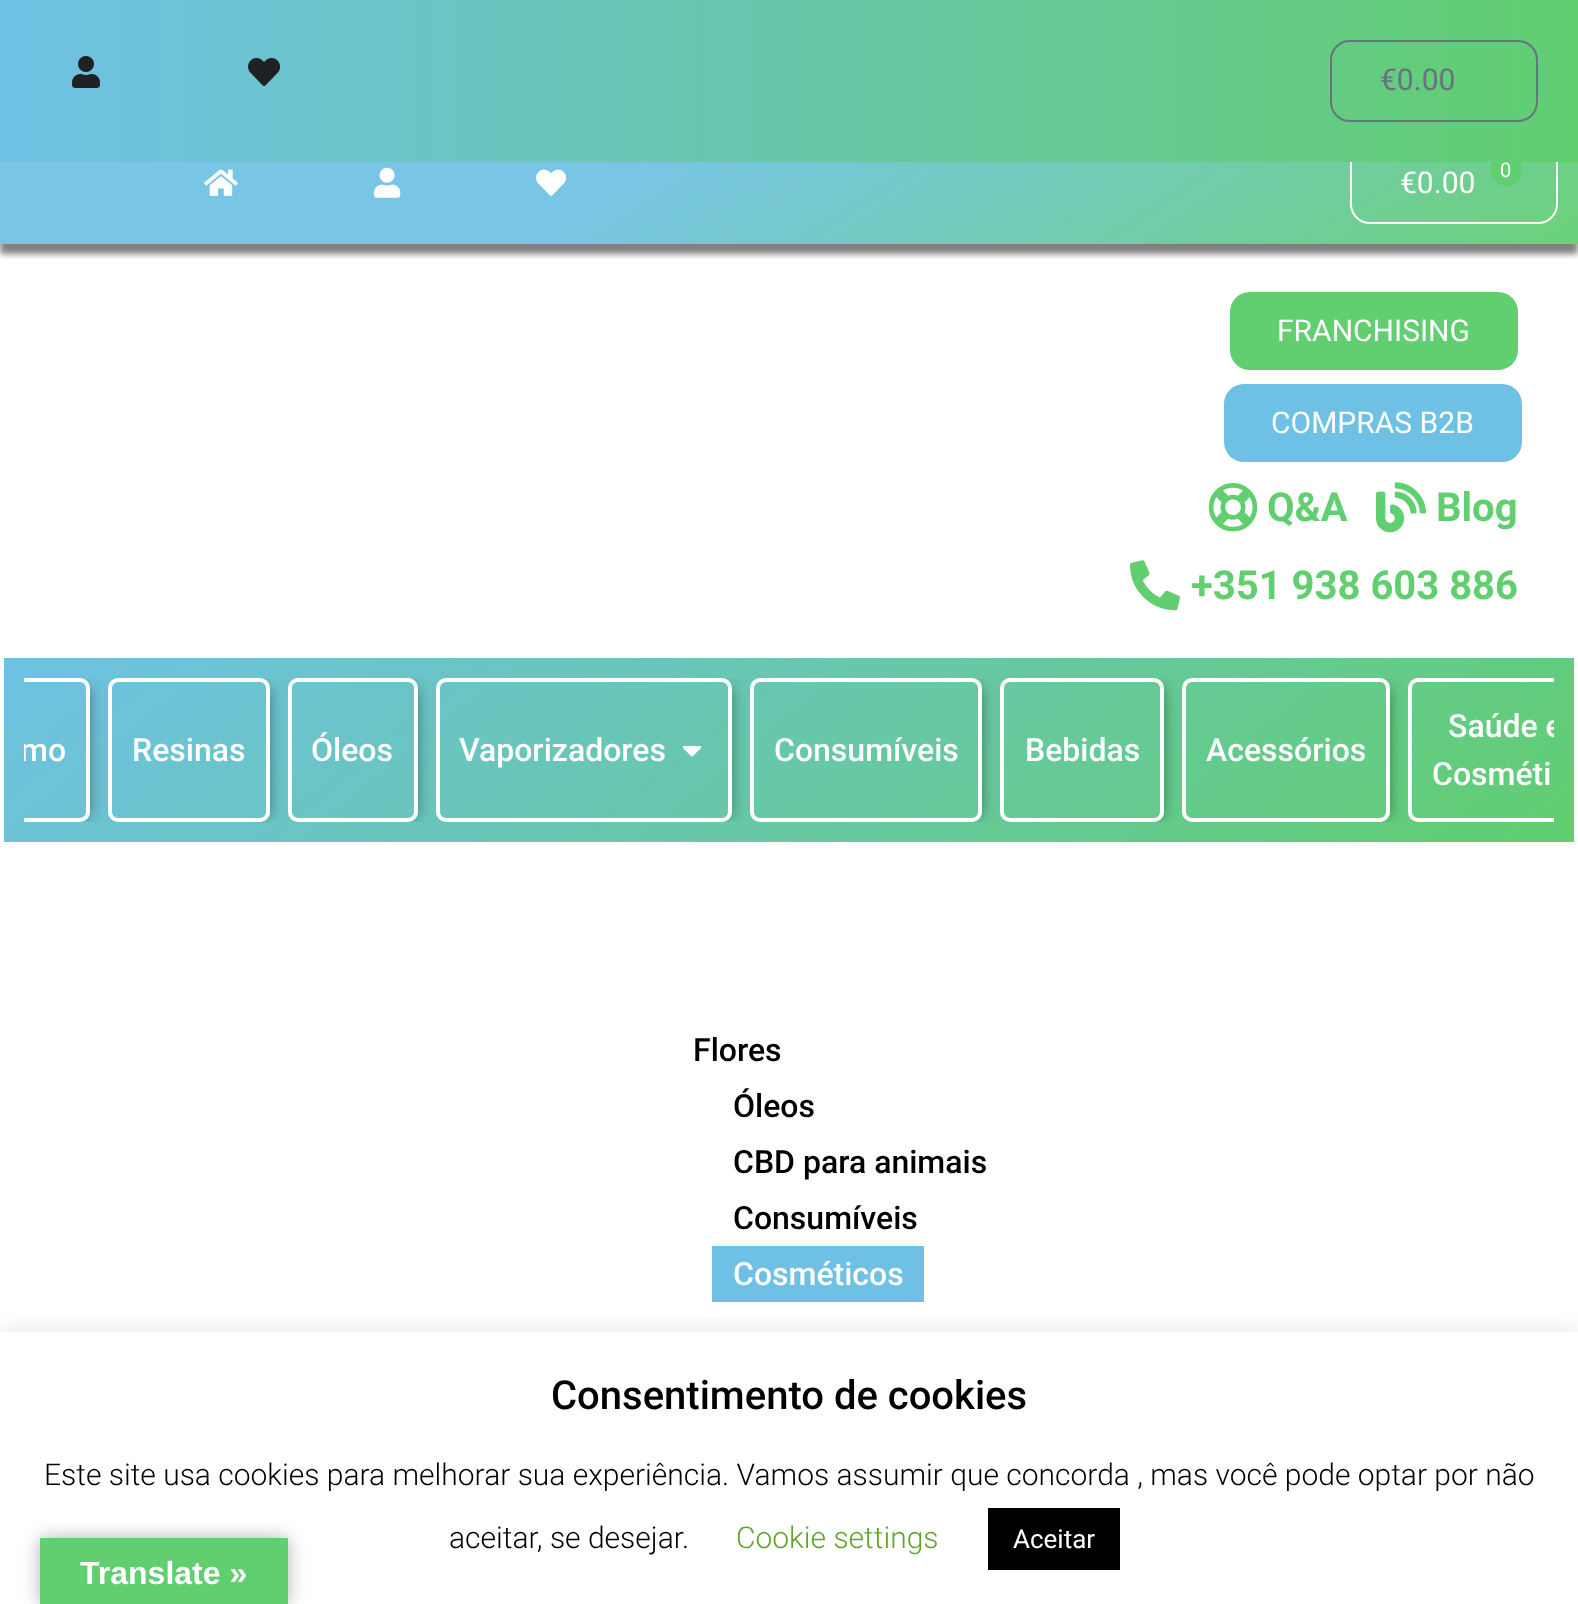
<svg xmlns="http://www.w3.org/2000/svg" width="1578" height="1604">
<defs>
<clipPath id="clip1"><rect x="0" y="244" width="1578" height="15"/></clipPath>
<linearGradient id="g1" gradientUnits="userSpaceOnUse" x1="527" y1="-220" x2="1051" y2="586"><stop offset="0.4" stop-color="#6ec1e4" stop-opacity="0.93"/><stop offset="1" stop-color="#61ce70" stop-opacity="0.93"/></linearGradient>
<linearGradient id="g2" gradientUnits="userSpaceOnUse" x1="0" y1="81" x2="1578" y2="81"><stop offset="0" stop-color="#6ec1e4"/><stop offset="1" stop-color="#61ce70"/></linearGradient>
<linearGradient id="g3" gradientUnits="userSpaceOnUse" x1="433" y1="311" x2="1145" y2="1189"><stop offset="0" stop-color="#6ec1e4"/><stop offset="1" stop-color="#61ce70"/></linearGradient>
<clipPath id="clip2"><rect x="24" y="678" width="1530" height="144"/></clipPath>
<clipPath id="clip3"><path d="M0 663h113v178h-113zm-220 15h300c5.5 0 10 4.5 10 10v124c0 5.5-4.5 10-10 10h-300c-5.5 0-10-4.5-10-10v-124c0-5.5 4.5-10 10-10z" clip-rule="evenodd"/></clipPath>
<clipPath id="clip4"><rect x="24" y="678" width="1530" height="144"/></clipPath>
<clipPath id="clip5"><path d="M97 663h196v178h-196zm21 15h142c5.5 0 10 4.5 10 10v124c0 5.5-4.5 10-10 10h-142c-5.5 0-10-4.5-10-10v-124c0-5.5 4.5-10 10-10z" clip-rule="evenodd"/></clipPath>
<clipPath id="clip6"><path d="M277 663h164v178h-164zm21 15h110c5.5 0 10 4.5 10 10v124c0 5.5-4.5 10-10 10h-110c-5.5 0-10-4.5-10-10v-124c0-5.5 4.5-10 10-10z" clip-rule="evenodd"/></clipPath>
<clipPath id="clip7"><path d="M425 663h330v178h-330zm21 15h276c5.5 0 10 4.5 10 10v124c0 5.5-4.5 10-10 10h-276c-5.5 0-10-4.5-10-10v-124c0-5.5 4.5-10 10-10z" clip-rule="evenodd"/></clipPath>
<clipPath id="clip8"><path d="M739 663h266v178h-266zm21 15h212c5.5 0 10 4.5 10 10v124c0 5.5-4.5 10-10 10h-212c-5.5 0-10-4.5-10-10v-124c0-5.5 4.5-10 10-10z" clip-rule="evenodd"/></clipPath>
<clipPath id="clip9"><path d="M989 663h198v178h-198zm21 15h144c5.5 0 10 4.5 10 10v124c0 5.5-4.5 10-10 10h-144c-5.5 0-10-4.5-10-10v-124c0-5.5 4.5-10 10-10z" clip-rule="evenodd"/></clipPath>
<clipPath id="clip10"><path d="M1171 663h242v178h-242zm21 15h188c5.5 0 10 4.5 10 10v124c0 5.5-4.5 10-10 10h-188c-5.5 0-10-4.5-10-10v-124c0-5.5 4.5-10 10-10z" clip-rule="evenodd"/></clipPath>
</defs>
<rect width="100%" height="100%" fill="#fff"/>
<g clip-path="url(#clip1)">
<rect y="132" width="1578" height="122" fill="#00000080" filter="blur(3px)"/>
</g>
<rect y="162" width="1578" height="82" fill="url(#g1)"/>
<rect x="1351" y="143" width="206" height="80" rx="19" fill="none" stroke="#fff" stroke-width="2"/>
<circle cx="1506" cy="170" r="16" fill="#61ce70"/>
<rect width="1578" height="162" fill="url(#g2)"/>
<image x="72" y="56" width="28" height="32" href="media/1.png"/>
<image x="248" y="58" width="33" height="28" href="media/2.png"/>
<rect x="1331" y="41" width="206" height="80" rx="19" fill="none" stroke="#69727d" stroke-width="2"/>
<text x="1380" y="90" style="font-family:Roboto;font-size:30px;fill:#69727d">€0.00</text>
<text x="693" y="1061" style="font-family:Roboto;font-size:32px;font-weight:500;fill:#000">Flores</text>
<text x="733" y="1117" style="font-family:Roboto;font-size:32px;font-weight:500;fill:#000">Óleos</text>
<text x="733" y="1173" style="font-family:Roboto;font-size:32px;font-weight:500;fill:#000">CBD para animais</text>
<text x="733" y="1229" style="font-family:Roboto;font-size:32px;font-weight:500;fill:#000">Consumíveis</text>
<rect x="712" y="1246" width="212" height="56" fill="#6ec1e4"/>
<text x="733" y="1285" style="font-family:Roboto;font-size:32px;font-weight:500;fill:#fff">Cosméticos</text>
<image x="204" y="169" width="34" height="27" href="media/3.png"/>
<image x="374" y="167" width="27" height="31" href="media/4.png"/>
<image x="536" y="169" width="31" height="27" href="media/5.png"/>
<text x="1400" y="193" style="font-family:Roboto;font-size:30px;fill:#fff">€0.00</text>
<text x="1500" y="177" style="font-family:Roboto;font-size:20px;fill:#fff">0</text>
<rect x="1230" y="292" width="288" height="78" rx="20" fill="#61ce70"/>
<text x="1277" y="341" style="font-family:Roboto;font-size:30px;fill:#fff">FRANCHISING</text>
<rect x="1224" y="384" width="298" height="78" rx="20" fill="#6ec1e4"/>
<text x="1271" y="433" style="font-family:Roboto;font-size:30px;fill:#fff">COMPRAS B2B</text>
<image x="1208" y="483" width="50" height="49" href="media/6.png"/>
<text x="1267" y="521" style="font-family:Roboto;font-size:40px;font-weight:bold;fill:#61ce70">Q&amp;A</text>
<image x="1376" y="482" width="50" height="51" href="media/7.png"/>
<text x="1436" y="521" style="font-family:Roboto;font-size:40px;font-weight:bold;fill:#61ce70">Blog</text>
<image x="1130" y="560" width="50" height="51" href="media/8.png"/>
<text x="1191" y="599" style="font-family:Roboto;font-size:40px;font-weight:bold;fill:#61ce70">+351 938 603 886</text>
<rect x="4" y="658" width="1570" height="184" fill="url(#g3)"/>
<g clip-path="url(#clip2)">
<g clip-path="url(#clip3)">
<rect x="-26" y="688" width="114" height="128" rx="2" fill="#00000080" filter="blur(8px)"/>
</g>
</g>
<g clip-path="url(#clip4)">
<rect x="-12" y="680" width="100" height="140" rx="8" fill="none" stroke="#fff" stroke-width="4"/>
<text x="20" y="761" style="font-family:Roboto;font-size:32px;font-weight:500;fill:#fff">mo</text>
</g>
<g clip-path="url(#clip2)">
<g clip-path="url(#clip5)">
<rect x="122" y="688" width="146" height="128" rx="2" fill="#00000080" filter="blur(8px)"/>
</g>
</g>
<rect x="110" y="680" width="158" height="140" rx="8" fill="none" stroke="#fff" stroke-width="4"/>
<text x="132" y="761" style="font-family:Roboto;font-size:32px;font-weight:500;fill:#fff">Resinas</text>
<g clip-path="url(#clip2)">
<g clip-path="url(#clip6)">
<rect x="302" y="688" width="114" height="128" rx="2" fill="#00000080" filter="blur(8px)"/>
</g>
</g>
<rect x="290" y="680" width="126" height="140" rx="8" fill="none" stroke="#fff" stroke-width="4"/>
<text x="311" y="761" style="font-family:Roboto;font-size:32px;font-weight:500;fill:#fff">Óleos</text>
<g clip-path="url(#clip2)">
<g clip-path="url(#clip7)">
<rect x="450" y="688" width="280" height="128" rx="2" fill="#00000080" filter="blur(8px)"/>
</g>
</g>
<rect x="438" y="680" width="292" height="140" rx="8" fill="none" stroke="#fff" stroke-width="4"/>
<text x="459" y="761" style="font-family:Roboto;font-size:32px;font-weight:500;fill:#fff">Vaporizadores</text>
<image x="682" y="746" width="20" height="11" href="media/9.png"/>
<g clip-path="url(#clip2)">
<g clip-path="url(#clip8)">
<rect x="764" y="688" width="216" height="128" rx="2" fill="#00000080" filter="blur(8px)"/>
</g>
</g>
<rect x="752" y="680" width="228" height="140" rx="8" fill="none" stroke="#fff" stroke-width="4"/>
<text x="774" y="761" style="font-family:Roboto;font-size:32px;font-weight:500;fill:#fff">Consumíveis</text>
<g clip-path="url(#clip2)">
<g clip-path="url(#clip9)">
<rect x="1014" y="688" width="148" height="128" rx="2" fill="#00000080" filter="blur(8px)"/>
</g>
</g>
<rect x="1002" y="680" width="160" height="140" rx="8" fill="none" stroke="#fff" stroke-width="4"/>
<text x="1025" y="761" style="font-family:Roboto;font-size:32px;font-weight:500;fill:#fff">Bebidas</text>
<g clip-path="url(#clip2)">
<g clip-path="url(#clip10)">
<rect x="1196" y="688" width="192" height="128" rx="2" fill="#00000080" filter="blur(8px)"/>
</g>
</g>
<rect x="1184" y="680" width="204" height="140" rx="8" fill="none" stroke="#fff" stroke-width="4"/>
<text x="1206" y="761" style="font-family:Roboto;font-size:32px;font-weight:500;fill:#fff">Acessórios</text>
<g clip-path="url(#clip4)">
<rect x="1410" y="680" width="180" height="140" rx="8" fill="none" stroke="#fff" stroke-width="4"/>
<text x="1448" y="737" style="font-family:Roboto;font-size:32px;font-weight:500;fill:#fff">Saúde e</text>
</g>
<text x="1432" y="785" style="font-family:Roboto;font-size:32px;font-weight:500;fill:#fff">Cosméti</text>
<rect y="1330" width="1578" height="272" fill="#acabab4d" filter="blur(10px)"/>
<rect y="1332" width="1578" height="272" fill="#fff"/>
<text x="551" y="1409" style="font-family:Roboto;font-size:40px;font-weight:500;fill:#000">Consentimento de cookies</text>
<text x="44" y="1485" style="font-family:Roboto;font-size:30px;font-weight:300;fill:#000">Este site usa cookies para melhorar sua experiência. Vamos assumir que concorda , mas você pode optar por não</text>
<text x="449" y="1548" style="font-family:Roboto;font-size:30px;font-weight:300;fill:#000">aceitar, se desejar.</text>
<text x="736" y="1548" style="font-family:Roboto;font-size:30px;font-weight:300;fill:#62a329">Cookie settings</text>
<rect x="988" y="1508" width="132" height="62" fill="#000"/>
<text x="1013" y="1548" style="font-family:Roboto;font-size:26px;fill:#fff">Aceitar</text>
<rect x="40" y="1538" width="248" height="66" fill="#0000004d" filter="blur(9px)"/>
<rect x="40" y="1538" width="248" height="66" fill="#61ce70"/>
<text x="80" y="1584" style="font-family:Liberation Sans;font-size:32px;font-weight:bold;fill:#fff">Translate »</text>
</svg>
